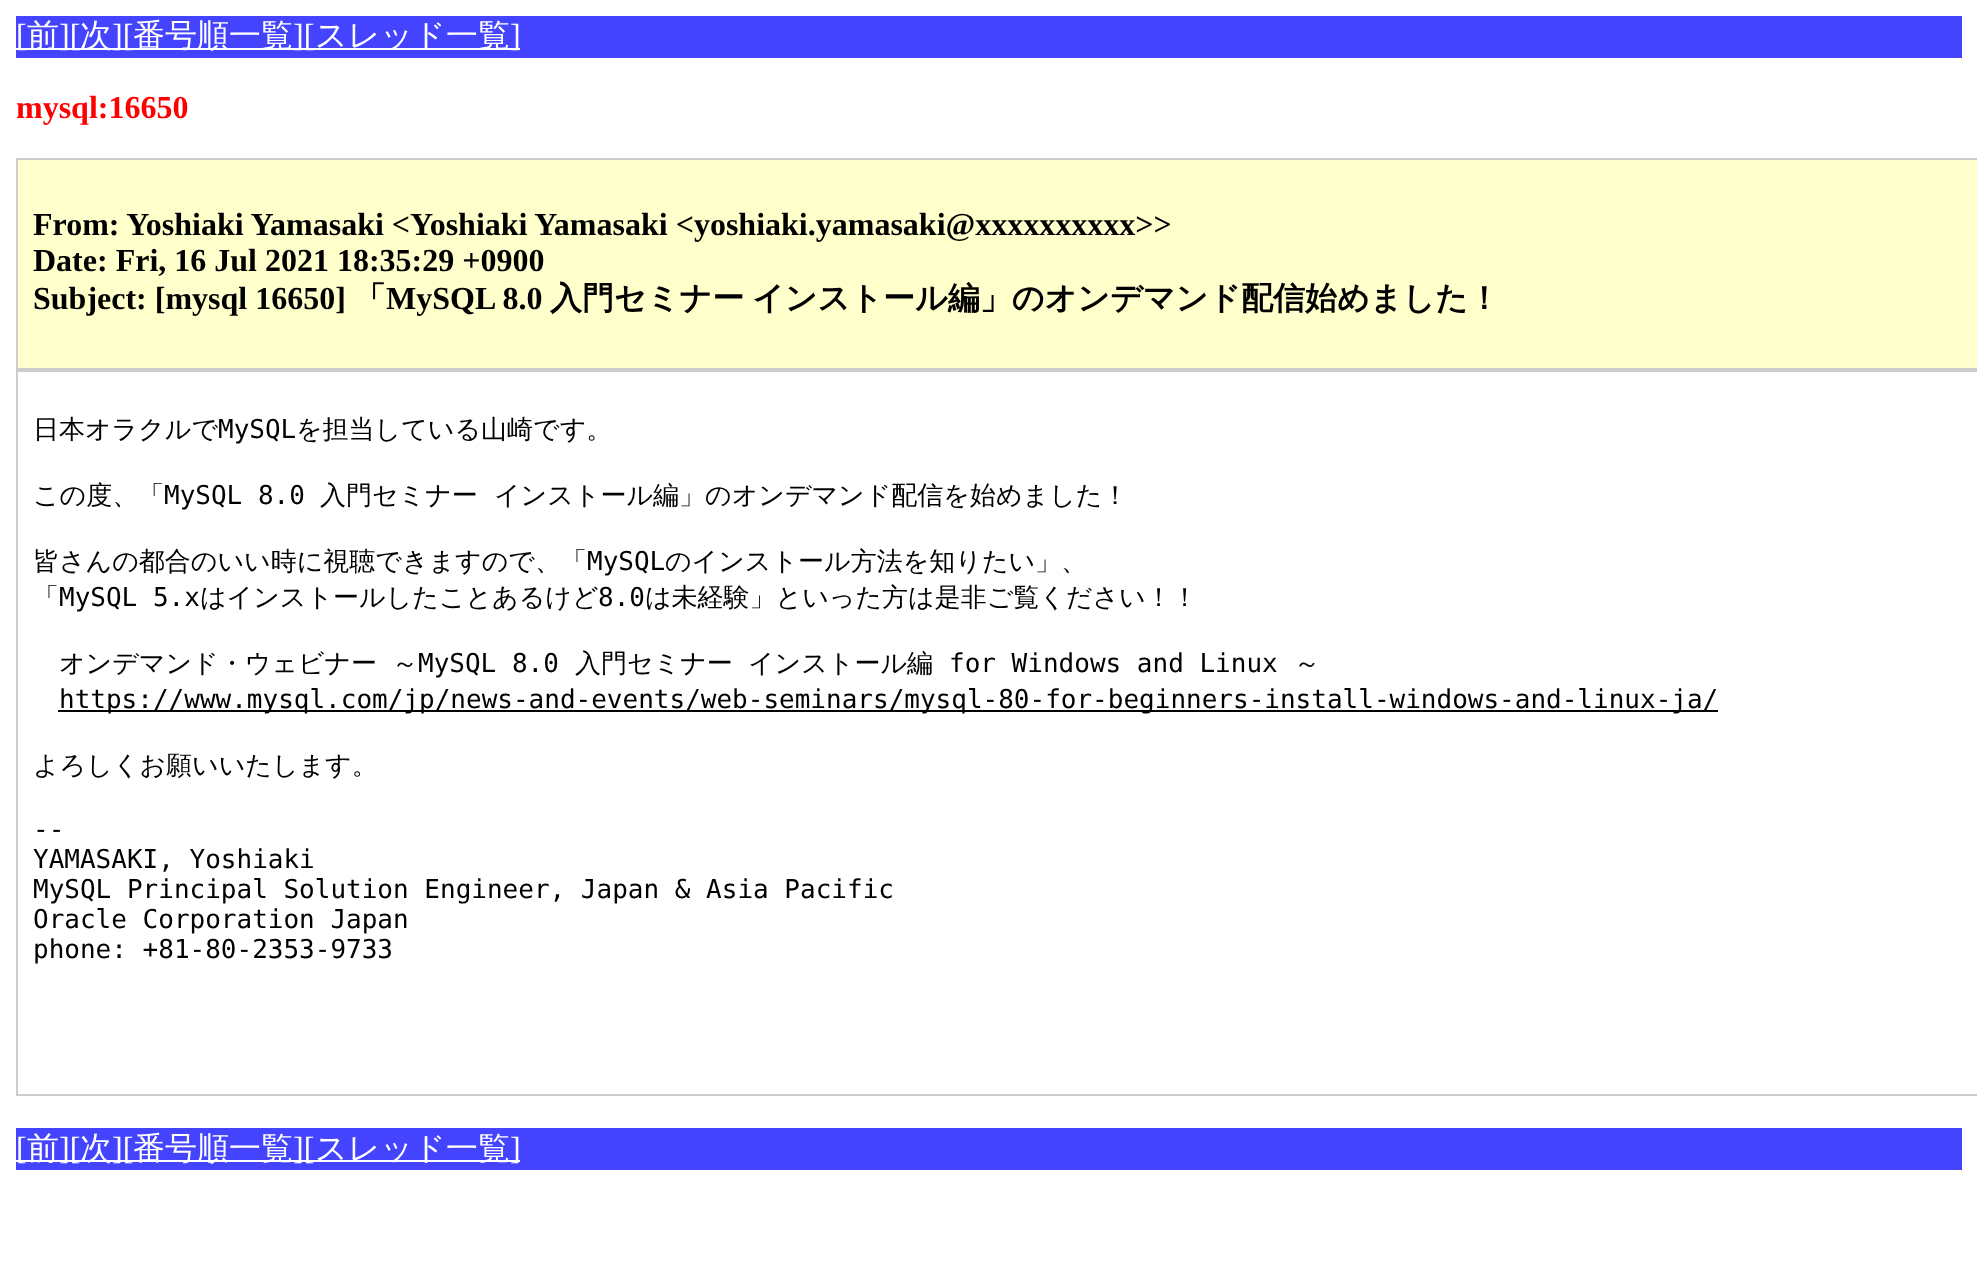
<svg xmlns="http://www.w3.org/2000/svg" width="1977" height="1285">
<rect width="100%" height="100%" fill="#fff"/>
<rect x="16" y="16" width="1946" height="42" fill="#44f"/>
<rect x="16" y="48" width="504" height="2" fill="#fff"/>
<text x="16" y="46" style="font-family:Liberation Serif;font-size:32px;fill:#fff">[</text>
<text x="27" y="46" style="font-family:WenQuanYi Zen Hei;font-size:32px;font-weight:500;fill:#fff">前</text>
<text x="59" y="46" style="font-family:Liberation Serif;font-size:32px;fill:#fff">][</text>
<text x="80" y="46" style="font-family:WenQuanYi Zen Hei;font-size:32px;font-weight:500;fill:#fff">次</text>
<text x="112" y="46" style="font-family:Liberation Serif;font-size:32px;fill:#fff">][</text>
<text x="133" y="46" style="font-family:WenQuanYi Zen Hei;font-size:32px;font-weight:500;fill:#fff">番号順一覧</text>
<text x="293" y="46" style="font-family:Liberation Serif;font-size:32px;fill:#fff">][</text>
<text x="315" y="46" style="font-family:WenQuanYi Zen Hei;font-size:32px;font-weight:500;fill:#fff">スレッド一覧</text>
<text x="510" y="46" style="font-family:Liberation Serif;font-size:32px;fill:#fff">]</text>
<text x="16" y="118" style="font-family:Liberation Serif;font-size:32px;font-weight:bold;fill:#f00">mysql:16650</text>
<rect x="17" y="159" width="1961" height="210" fill="#ffc" stroke="#ccc" stroke-width="2"/>
<text x="33" y="235" style="font-family:Liberation Serif;font-size:32px;font-weight:bold;fill:#000">From: Yoshiaki Yamasaki &lt;Yoshiaki Yamasaki &lt;yoshiaki.yamasaki@xxxxxxxxxx&gt;&gt;</text>
<text x="33" y="271" style="font-family:Liberation Serif;font-size:32px;font-weight:bold;fill:#000">Date: Fri, 16 Jul 2021 18:35:29 +0900</text>
<text x="33" y="309" style="font-family:Liberation Serif;font-size:32px;font-weight:bold;fill:#000">Subject: [mysql 16650]</text>
<text x="354" y="309" style="font-family:WenQuanYi Zen Hei;font-size:32px;font-weight:bold;fill:#000">「</text>
<text x="386" y="309" style="font-family:Liberation Serif;font-size:32px;font-weight:bold;fill:#000">MySQL 8.0</text>
<text x="550" y="309" style="font-family:WenQuanYi Zen Hei;font-size:32px;font-weight:bold;fill:#000">入門セミナー</text>
<text x="752" y="309" style="font-family:WenQuanYi Zen Hei;font-size:32px;font-weight:bold;fill:#000">インストール編」のオンデマンド配信始めました！</text>
<rect x="17" y="371" width="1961" height="724" fill="none" stroke="#ccc" stroke-width="2"/>
<text x="33" y="438" style="font-family:WenQuanYi Zen Hei;font-size:26px;font-weight:500;fill:#000">日本オラクルで</text>
<text x="218" y="438" style="font-family:DejaVu Sans Mono;font-size:26px;fill:#000">MySQL</text>
<text x="296" y="438" style="font-family:WenQuanYi Zen Hei;font-size:26px;font-weight:500;fill:#000">を担当している山崎です。</text>
<text x="33" y="504" style="font-family:WenQuanYi Zen Hei;font-size:26px;font-weight:500;fill:#000">この度、「</text>
<text x="164" y="504" style="font-family:DejaVu Sans Mono;font-size:26px;fill:#000">MySQL 8.0</text>
<text x="320" y="504" style="font-family:WenQuanYi Zen Hei;font-size:26px;font-weight:500;fill:#000">入門セミナー</text>
<text x="494" y="504" style="font-family:WenQuanYi Zen Hei;font-size:26px;font-weight:500;fill:#000">インストール編」のオンデマンド配信を始めました！</text>
<text x="33" y="570" style="font-family:WenQuanYi Zen Hei;font-size:26px;font-weight:500;fill:#000">皆さんの都合のいい時に視聴できますので、「</text>
<text x="587" y="570" style="font-family:DejaVu Sans Mono;font-size:26px;fill:#000">MySQL</text>
<text x="665" y="570" style="font-family:WenQuanYi Zen Hei;font-size:26px;font-weight:500;fill:#000">のインストール方法を知りたい」、</text>
<text x="33" y="606" style="font-family:WenQuanYi Zen Hei;font-size:26px;font-weight:500;fill:#000">「</text>
<text x="59" y="606" style="font-family:DejaVu Sans Mono;font-size:26px;fill:#000">MySQL 5.x</text>
<text x="200" y="606" style="font-family:WenQuanYi Zen Hei;font-size:26px;font-weight:500;fill:#000">はインストールしたことあるけど</text>
<text x="598" y="606" style="font-family:DejaVu Sans Mono;font-size:26px;fill:#000">8.0</text>
<text x="645" y="606" style="font-family:WenQuanYi Zen Hei;font-size:26px;font-weight:500;fill:#000">は未経験」といった方は是非ご覧ください！！</text>
<text x="59" y="672" style="font-family:WenQuanYi Zen Hei;font-size:26px;font-weight:500;fill:#000">オンデマンド・ウェビナー</text>
<text x="392" y="672" style="font-family:WenQuanYi Zen Hei;font-size:26px;font-weight:500;fill:#000">～</text>
<text x="418" y="672" style="font-family:DejaVu Sans Mono;font-size:26px;fill:#000">MySQL 8.0</text>
<text x="575" y="672" style="font-family:WenQuanYi Zen Hei;font-size:26px;font-weight:500;fill:#000">入門セミナー</text>
<text x="748" y="672" style="font-family:WenQuanYi Zen Hei;font-size:26px;font-weight:500;fill:#000">インストール編</text>
<text x="949" y="672" style="font-family:DejaVu Sans Mono;font-size:26px;fill:#000">for Windows and Linux</text>
<text x="1294" y="672" style="font-family:WenQuanYi Zen Hei;font-size:26px;font-weight:500;fill:#000">～</text>
<rect x="58" y="710" width="1660" height="2" fill="#000"/>
<text x="59" y="708" style="font-family:DejaVu Sans Mono;font-size:26px;fill:#000">https://www.mysql.com/jp/news-and-events/web-seminars/mysql-80-for-beginners-install-windows-and-linux-ja/</text>
<text x="33" y="774" style="font-family:WenQuanYi Zen Hei;font-size:26px;font-weight:500;fill:#000">よろしくお願いいたします。</text>
<text x="33" y="838" style="font-family:DejaVu Sans Mono;font-size:26px;fill:#000">--</text>
<text x="33" y="868" style="font-family:DejaVu Sans Mono;font-size:26px;fill:#000">YAMASAKI, Yoshiaki</text>
<text x="33" y="898" style="font-family:DejaVu Sans Mono;font-size:26px;fill:#000">MySQL Principal Solution Engineer, Japan &amp; Asia Pacific</text>
<text x="33" y="928" style="font-family:DejaVu Sans Mono;font-size:26px;fill:#000">Oracle Corporation Japan</text>
<text x="33" y="958" style="font-family:DejaVu Sans Mono;font-size:26px;fill:#000">phone: +81-80-2353-9733</text>
<rect x="16" y="1128" width="1946" height="42" fill="#44f"/>
<rect x="16" y="1160" width="504" height="2" fill="#fff"/>
<text x="16" y="1159" style="font-family:Liberation Serif;font-size:32px;fill:#fff">[</text>
<text x="27" y="1159" style="font-family:WenQuanYi Zen Hei;font-size:32px;font-weight:500;fill:#fff">前</text>
<text x="59" y="1159" style="font-family:Liberation Serif;font-size:32px;fill:#fff">][</text>
<text x="80" y="1159" style="font-family:WenQuanYi Zen Hei;font-size:32px;font-weight:500;fill:#fff">次</text>
<text x="112" y="1159" style="font-family:Liberation Serif;font-size:32px;fill:#fff">][</text>
<text x="133" y="1159" style="font-family:WenQuanYi Zen Hei;font-size:32px;font-weight:500;fill:#fff">番号順一覧</text>
<text x="293" y="1159" style="font-family:Liberation Serif;font-size:32px;fill:#fff">][</text>
<text x="315" y="1159" style="font-family:WenQuanYi Zen Hei;font-size:32px;font-weight:500;fill:#fff">スレッド一覧</text>
<text x="510" y="1159" style="font-family:Liberation Serif;font-size:32px;fill:#fff">]</text>
</svg>
